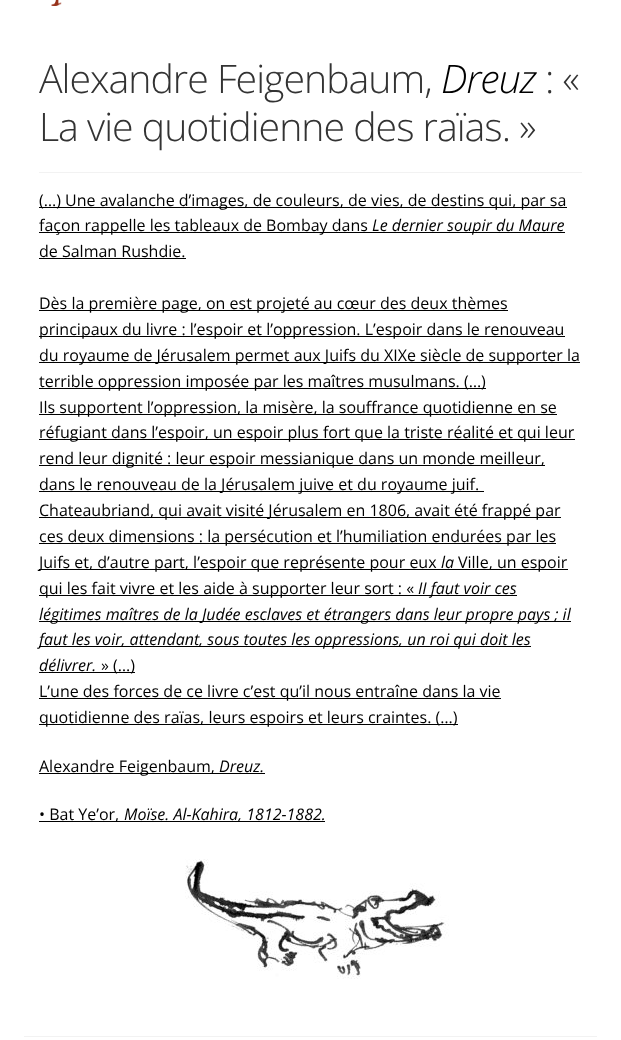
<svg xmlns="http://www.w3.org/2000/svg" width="621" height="1040">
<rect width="100%" height="100%" fill="#fff"/>
<image x="51" y="0" width="11" height="6" href="media/1.png"/>
<rect x="39" y="172" width="543" height="1" fill="#f2f2f2"/>
<text x="39" y="93" style="font-family:Open Sans;font-size:39.25px;font-weight:300;letter-spacing:-1px;fill:#333">Alexandre Feigenbaum,</text>
<text x="441" y="93" style="font-family:Open Sans;font-size:39.25px;font-weight:300;font-style:italic;letter-spacing:-1px;fill:#000">Dreuz</text>
<text x="545" y="93" style="font-family:Open Sans;font-size:39.25px;font-weight:300;letter-spacing:-1px;fill:#333">: «</text>
<text x="39" y="141" style="font-family:Open Sans;font-size:39.25px;font-weight:300;letter-spacing:-1px;fill:#333">La vie quotidienne des raïas. »</text>
<rect x="39" y="207" width="528" height="1" fill="#000"/>
<text x="39" y="206" style="font-family:Open Sans;font-size:16px;fill:#000">(…) Une avalanche d’images, de couleurs, de vies, de destins qui, par sa</text>
<rect x="39" y="232" width="526" height="1" fill="#000"/>
<text x="39" y="231" style="font-family:Open Sans;font-size:16px;fill:#000">façon rappelle les tableaux de Bombay dans</text>
<text x="372" y="231" style="font-family:Open Sans;font-size:16px;font-style:italic;fill:#000">Le dernier soupir du Maure</text>
<text x="39" y="257" style="font-family:Open Sans;font-size:16px;fill:#000">de Salman Rushdie.</text>
<rect x="39" y="258" width="147" height="1" fill="#000"/>
<rect x="39" y="310" width="469" height="1" fill="#000"/>
<text x="39" y="309" style="font-family:Open Sans;font-size:16px;fill:#000">Dès la première page, on est projeté au cœur des deux thèmes</text>
<rect x="39" y="336" width="526" height="1" fill="#000"/>
<text x="39" y="335" style="font-family:Open Sans;font-size:16px;fill:#000">principaux du livre : l’espoir et l’oppression. L’espoir dans le renouveau</text>
<rect x="39" y="362" width="541" height="1" fill="#000"/>
<text x="39" y="361" style="font-family:Open Sans;font-size:16px;fill:#000">du royaume de Jérusalem permet aux Juifs du XIXe siècle de supporter la</text>
<rect x="39" y="388" width="447" height="1" fill="#000"/>
<text x="39" y="387" style="font-family:Open Sans;font-size:16px;fill:#000">terrible oppression imposée par les maîtres musulmans. (…)</text>
<rect x="39" y="414" width="518" height="1" fill="#000"/>
<text x="39" y="413" style="font-family:Open Sans;font-size:16px;fill:#000">Ils supportent l’oppression, la misère, la souffrance quotidienne en se</text>
<rect x="39" y="439" width="536" height="1" fill="#000"/>
<text x="39" y="438" style="font-family:Open Sans;font-size:16px;fill:#000">réfugiant dans l’espoir, un espoir plus fort que la triste réalité et qui leur</text>
<rect x="39" y="465" width="506" height="1" fill="#000"/>
<text x="39" y="464" style="font-family:Open Sans;font-size:16px;fill:#000">rend leur dignité : leur espoir messianique dans un monde meilleur,</text>
<rect x="39" y="491" width="445" height="1" fill="#000"/>
<text x="39" y="490" style="font-family:Open Sans;font-size:16px;fill:#000">dans le renouveau de la Jérusalem juive et du royaume juif.</text>
<rect x="39" y="517" width="522" height="1" fill="#000"/>
<text x="39" y="516" style="font-family:Open Sans;font-size:16px;fill:#000">Chateaubriand, qui avait visité Jérusalem en 1806, avait été frappé par</text>
<rect x="39" y="543" width="517" height="1" fill="#000"/>
<text x="39" y="542" style="font-family:Open Sans;font-size:16px;fill:#000">ces deux dimensions : la persécution et l’humiliation endurées par les</text>
<rect x="39" y="569" width="529" height="1" fill="#000"/>
<text x="39" y="568" style="font-family:Open Sans;font-size:16px;fill:#000">Juifs et, d’autre part, l’espoir que représente pour eux</text>
<text x="441" y="568" style="font-family:Open Sans;font-size:16px;font-style:italic;fill:#000">la</text>
<text x="458" y="568" style="font-family:Open Sans;font-size:16px;fill:#000">Ville, un espoir</text>
<rect x="39" y="595" width="478" height="1" fill="#000"/>
<text x="39" y="594" style="font-family:Open Sans;font-size:16px;fill:#000">qui les fait vivre et les aide à supporter leur sort : «</text>
<text x="418" y="594" style="font-family:Open Sans;font-size:16px;font-style:italic;fill:#000">II faut voir ces</text>
<rect x="39" y="621" width="532" height="1" fill="#000"/>
<text x="39" y="620" style="font-family:Open Sans;font-size:16px;font-style:italic;fill:#000">légitimes maîtres de la Judée esclaves et étrangers dans leur propre pays ; il</text>
<rect x="39" y="646" width="492" height="1" fill="#000"/>
<text x="39" y="645" style="font-family:Open Sans;font-size:16px;font-style:italic;fill:#000">faut les voir, attendant, sous toutes les oppressions, un roi qui doit les</text>
<text x="39" y="671" style="font-family:Open Sans;font-size:16px;font-style:italic;fill:#000">délivrer.</text>
<rect x="39" y="672" width="96" height="1" fill="#000"/>
<text x="101" y="671" style="font-family:Open Sans;font-size:16px;fill:#000">» (…)</text>
<rect x="39" y="698" width="462" height="1" fill="#000"/>
<text x="39" y="697" style="font-family:Open Sans;font-size:16px;fill:#000">L’une des forces de ce livre c’est qu’il nous entraîne dans la vie</text>
<rect x="39" y="724" width="419" height="1" fill="#000"/>
<text x="39" y="723" style="font-family:Open Sans;font-size:16px;fill:#000">quotidienne des raïas, leurs espoirs et leurs craintes. (…)</text>
<rect x="39" y="773" width="226" height="1" fill="#000"/>
<text x="39" y="772" style="font-family:Open Sans;font-size:16px;fill:#000">Alexandre Feigenbaum,</text>
<text x="219" y="772" style="font-family:Open Sans;font-size:16px;font-style:italic;fill:#000">Dreuz.</text>
<rect x="39" y="821" width="286" height="1" fill="#000"/>
<text x="39" y="820" style="font-family:Open Sans;font-size:16px;fill:#000">• Bat Ye’or,</text>
<text x="124" y="820" style="font-family:Open Sans;font-size:16px;font-style:italic;fill:#000">Moïse. Al-Kahira, 1812-1882.</text>
<image x="185" y="859" width="264" height="120" href="media/2.png"/>
<rect x="24" y="1036" width="573" height="1" fill="#f2f2f2"/>
</svg>
